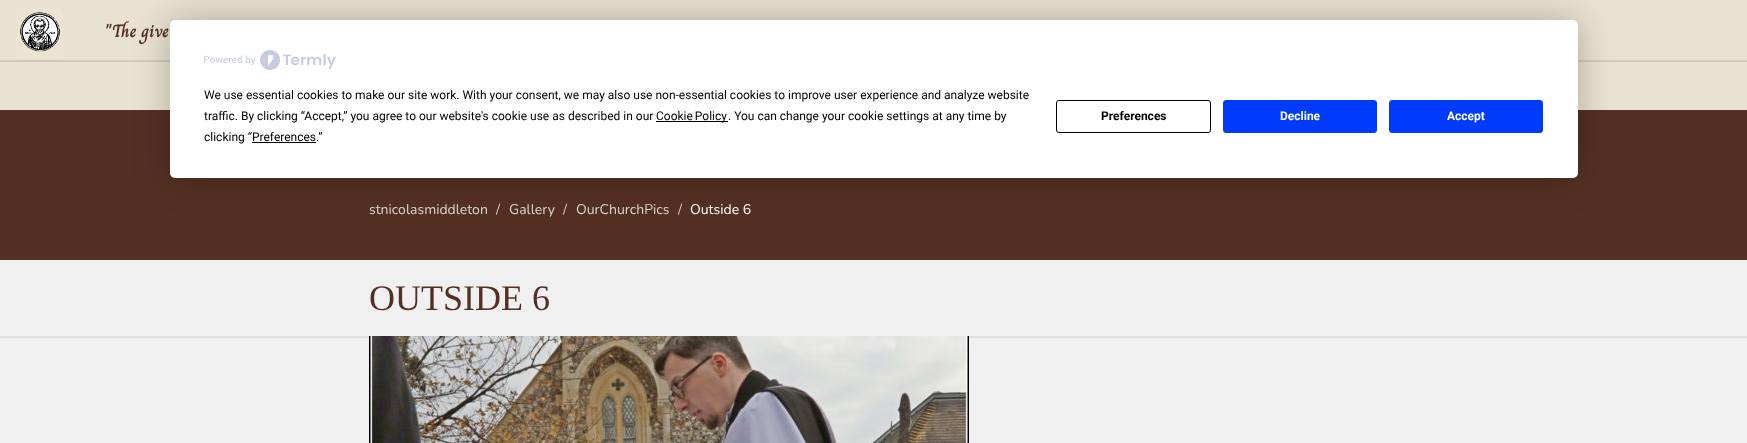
<svg xmlns="http://www.w3.org/2000/svg" width="1747" height="443">
<rect width="100%" height="100%" fill="#e9e2d1"/>
<rect y="60" width="1747" height="2" fill="#d2cbbc"/>
<image x="15" y="7" width="50" height="50" href="media/1.png"/>
<text x="105" y="37" style="font-family:Charm;font-size:18px;font-weight:bold;fill:#543022">"The give</text>
<rect y="110" width="1747" height="150" fill="#543022"/>
<text x="369" y="214" style="font-family:Nunito;font-size:14px;fill:#d8d6d1">stnicolasmiddleton</text>
<text x="496" y="214" style="font-family:Nunito;font-size:14px;fill:#ccc">/</text>
<text x="509" y="214" style="font-family:Nunito;font-size:14px;fill:#d8d6d1">Gallery</text>
<text x="563" y="214" style="font-family:Nunito;font-size:14px;fill:#ccc">/</text>
<text x="576" y="214" style="font-family:Nunito;font-size:14px;fill:#d8d6d1">OurChurchPics</text>
<text x="678" y="214" style="font-family:Nunito;font-size:14px;fill:#ccc">/</text>
<text x="690" y="214" style="font-family:Nunito;font-size:14px;fill:#fff">Outside 6</text>
<rect y="336" width="1747" height="2" fill="#dfdfdf"/>
<rect y="260" width="1747" height="76" fill="#f0f0f0"/>
<text x="369" y="310" style="font-family:Liberation Serif;font-size:36px;fill:#543022">OUTSIDE 6</text>
<rect y="338" width="1747" height="105" fill="#f0f0f0"/>
<image x="369" y="336" width="600" height="107" href="media/2.png"/>
<rect x="170" y="20" width="1408" height="158" rx="5" fill="#00000040" filter="blur(17.5px)"/>
<rect x="170" y="20" width="1408" height="158" rx="5" fill="#fff"/>
<image x="204" y="50" width="132" height="20" href="media/3.png"/>
<text x="204" y="99" style="font-family:Roboto;font-size:12px;fill:#000">We use essential cookies to make our site work. With your consent, we may also use non-essential cookies to improve user experience and analyze website</text>
<text x="204" y="120" style="font-family:Roboto;font-size:12px;fill:#000">traffic. By clicking “Accept,” you agree to our website's cookie use as described in our</text>
<rect x="656" y="121" width="72" height="1" fill="#000"/>
<text x="656" y="120" word-spacing="-1" style="font-family:Roboto;font-size:12px;fill:#000">Cookie Policy</text>
<text x="728" y="120" style="font-family:Roboto;font-size:12px;fill:#000">. You can change your cookie settings at any time by</text>
<text x="204" y="141" style="font-family:Roboto;font-size:12px;fill:#000">clicking “Preferences.”</text>
<rect x="252" y="142" width="64" height="1" fill="#000"/>
<rect x="1056.5" y="100.5" width="154" height="32" rx="2.5" fill="none" stroke="#000"/>
<text x="1101" y="120" style="font-family:Roboto;font-size:12px;font-weight:bold;fill:#000">Preferences</text>
<rect x="1223.5" y="100.5" width="153" height="32" rx="2.5" fill="#003afa" stroke="#003afa"/>
<text x="1280" y="120" style="font-family:Roboto;font-size:12px;font-weight:bold;fill:#fff">Decline</text>
<rect x="1389.5" y="100.5" width="153" height="32" rx="2.5" fill="#003afa" stroke="#003afa"/>
<text x="1447" y="120" style="font-family:Roboto;font-size:12px;font-weight:bold;fill:#fff">Accept</text>
</svg>
